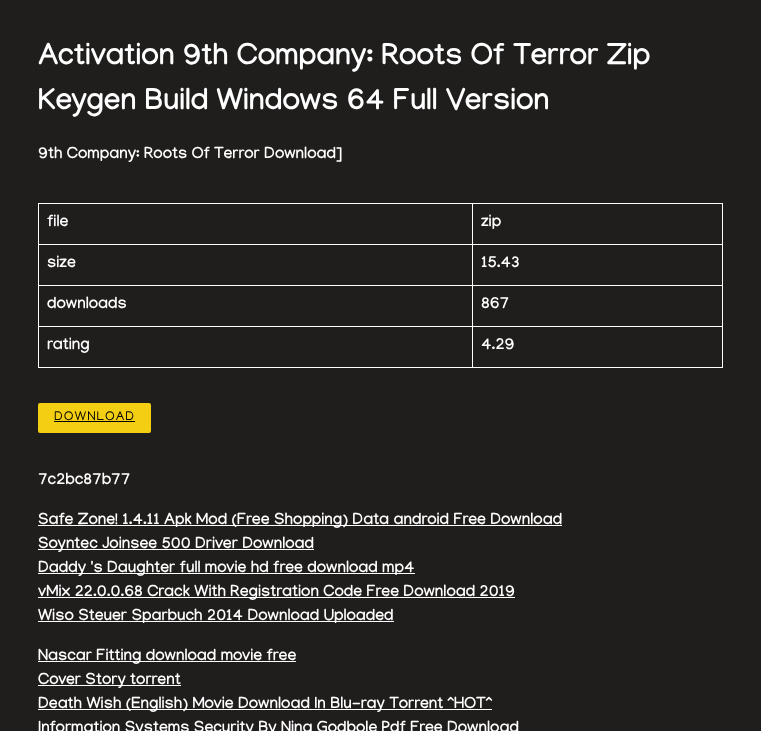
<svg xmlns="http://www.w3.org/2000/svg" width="761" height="731">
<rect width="100%" height="100%" fill="#201e1d"/>
<text x="38" y="64" style="font-family:Manjari;font-size:30px;font-weight:bold;fill:#fff">Activation 9th Company: Roots Of Terror Zip</text>
<text x="38" y="109" style="font-family:Manjari;font-size:30px;font-weight:bold;fill:#fff">Keygen Build Windows 64 Full Version</text>
<text x="38" y="158" style="font-family:Manjari;font-size:16px;font-weight:bold;fill:#fff">9th Company: Roots Of Terror Download]</text>
<rect x="472" y="203" width="251" height="1" fill="#fff"/>
<rect x="472" y="244" width="251" height="1" fill="#fff"/>
<rect x="472" y="285" width="251" height="1" fill="#fff"/>
<rect x="472" y="326" width="251" height="1" fill="#fff"/>
<rect x="722" y="326" width="1" height="42" fill="#fff"/>
<rect x="472" y="367" width="251" height="1" fill="#fff"/>
<rect x="472" y="326" width="1" height="42" fill="#fff"/>
<rect x="38" y="326" width="435" height="1" fill="#fff"/>
<rect x="472" y="285" width="1" height="42" fill="#fff"/>
<rect x="38" y="285" width="435" height="1" fill="#fff"/>
<rect x="472" y="244" width="1" height="42" fill="#fff"/>
<rect x="38" y="244" width="435" height="1" fill="#fff"/>
<rect x="472" y="203" width="1" height="42" fill="#fff"/>
<rect x="38" y="203" width="435" height="1" fill="#fff"/>
<rect x="38" y="367" width="435" height="1" fill="#fff"/>
<rect x="38" y="326" width="1" height="42" fill="#fff"/>
<rect x="38" y="285" width="1" height="42" fill="#fff"/>
<rect x="38" y="244" width="1" height="42" fill="#fff"/>
<rect x="38" y="203" width="1" height="42" fill="#fff"/>
<text x="47" y="226" style="font-family:Manjari;font-size:16px;font-weight:bold;fill:#fff">file</text>
<rect x="722" y="285" width="1" height="42" fill="#fff"/>
<rect x="722" y="244" width="1" height="42" fill="#fff"/>
<rect x="722" y="203" width="1" height="42" fill="#fff"/>
<text x="481" y="226" style="font-family:Manjari;font-size:16px;font-weight:bold;fill:#fff">zip</text>
<text x="47" y="267" style="font-family:Manjari;font-size:16px;font-weight:bold;fill:#fff">size</text>
<text x="481" y="267" style="font-family:Manjari;font-size:16px;font-weight:bold;fill:#fff">15.43</text>
<text x="47" y="308" style="font-family:Manjari;font-size:16px;font-weight:bold;fill:#fff">downloads</text>
<text x="481" y="308" style="font-family:Manjari;font-size:16px;font-weight:bold;fill:#fff">867</text>
<text x="47" y="349" style="font-family:Manjari;font-size:16px;font-weight:bold;fill:#fff">rating</text>
<text x="481" y="349" style="font-family:Manjari;font-size:16px;font-weight:bold;fill:#fff">4.29</text>
<rect x="38" y="403" width="113" height="30" rx="2" fill="#f3ce13"/>
<text x="54" y="420" style="font-family:Manjari;font-size:13px;letter-spacing:1px;fill:#000">DOWNLOAD</text>
<rect x="54" y="421" width="81" height="1" fill="#000"/>
<text x="38" y="484" style="font-family:Manjari;font-size:16px;font-weight:bold;fill:#fff">7c2bc87b77</text>
<rect x="38" y="525" width="524" height="1" fill="#fff"/>
<text x="38" y="524" style="font-family:Manjari;font-size:16px;font-weight:bold;fill:#fff">Safe Zone! 1.4.11 Apk Mod (Free Shopping) Data android Free Download</text>
<rect x="38" y="549" width="276" height="1" fill="#fff"/>
<text x="38" y="548" style="font-family:Manjari;font-size:16px;font-weight:bold;fill:#fff">Soyntec Joinsee 500 Driver Download</text>
<rect x="38" y="573" width="377" height="1" fill="#fff"/>
<text x="38" y="572" style="font-family:Manjari;font-size:16px;font-weight:bold;fill:#fff">Daddy 's Daughter full movie hd free download mp4</text>
<rect x="38" y="597" width="477" height="1" fill="#fff"/>
<text x="38" y="596" style="font-family:Manjari;font-size:16px;font-weight:bold;fill:#fff">vMix 22.0.0.68 Crack With Registration Code Free Download 2019</text>
<rect x="38" y="621" width="356" height="1" fill="#fff"/>
<text x="38" y="620" style="font-family:Manjari;font-size:16px;font-weight:bold;fill:#fff">Wiso Steuer Sparbuch 2014 Download Uploaded</text>
<rect x="38" y="661" width="258" height="1" fill="#fff"/>
<text x="38" y="660" style="font-family:Manjari;font-size:16px;font-weight:bold;fill:#fff">Nascar Fitting download movie free</text>
<rect x="38" y="685" width="143" height="1" fill="#fff"/>
<text x="38" y="684" style="font-family:Manjari;font-size:16px;font-weight:bold;fill:#fff">Cover Story torrent</text>
<rect x="38" y="709" width="454" height="1" fill="#fff"/>
<text x="38" y="708" style="font-family:Manjari;font-size:16px;font-weight:bold;fill:#fff">Death Wish (English) Movie Download In Blu-ray Torrent ^HOT^</text>
<text x="38" y="732" style="font-family:Manjari;font-size:16px;font-weight:bold;fill:#fff">Information Systems Security By Nina Godbole Pdf Free Download</text>
</svg>
